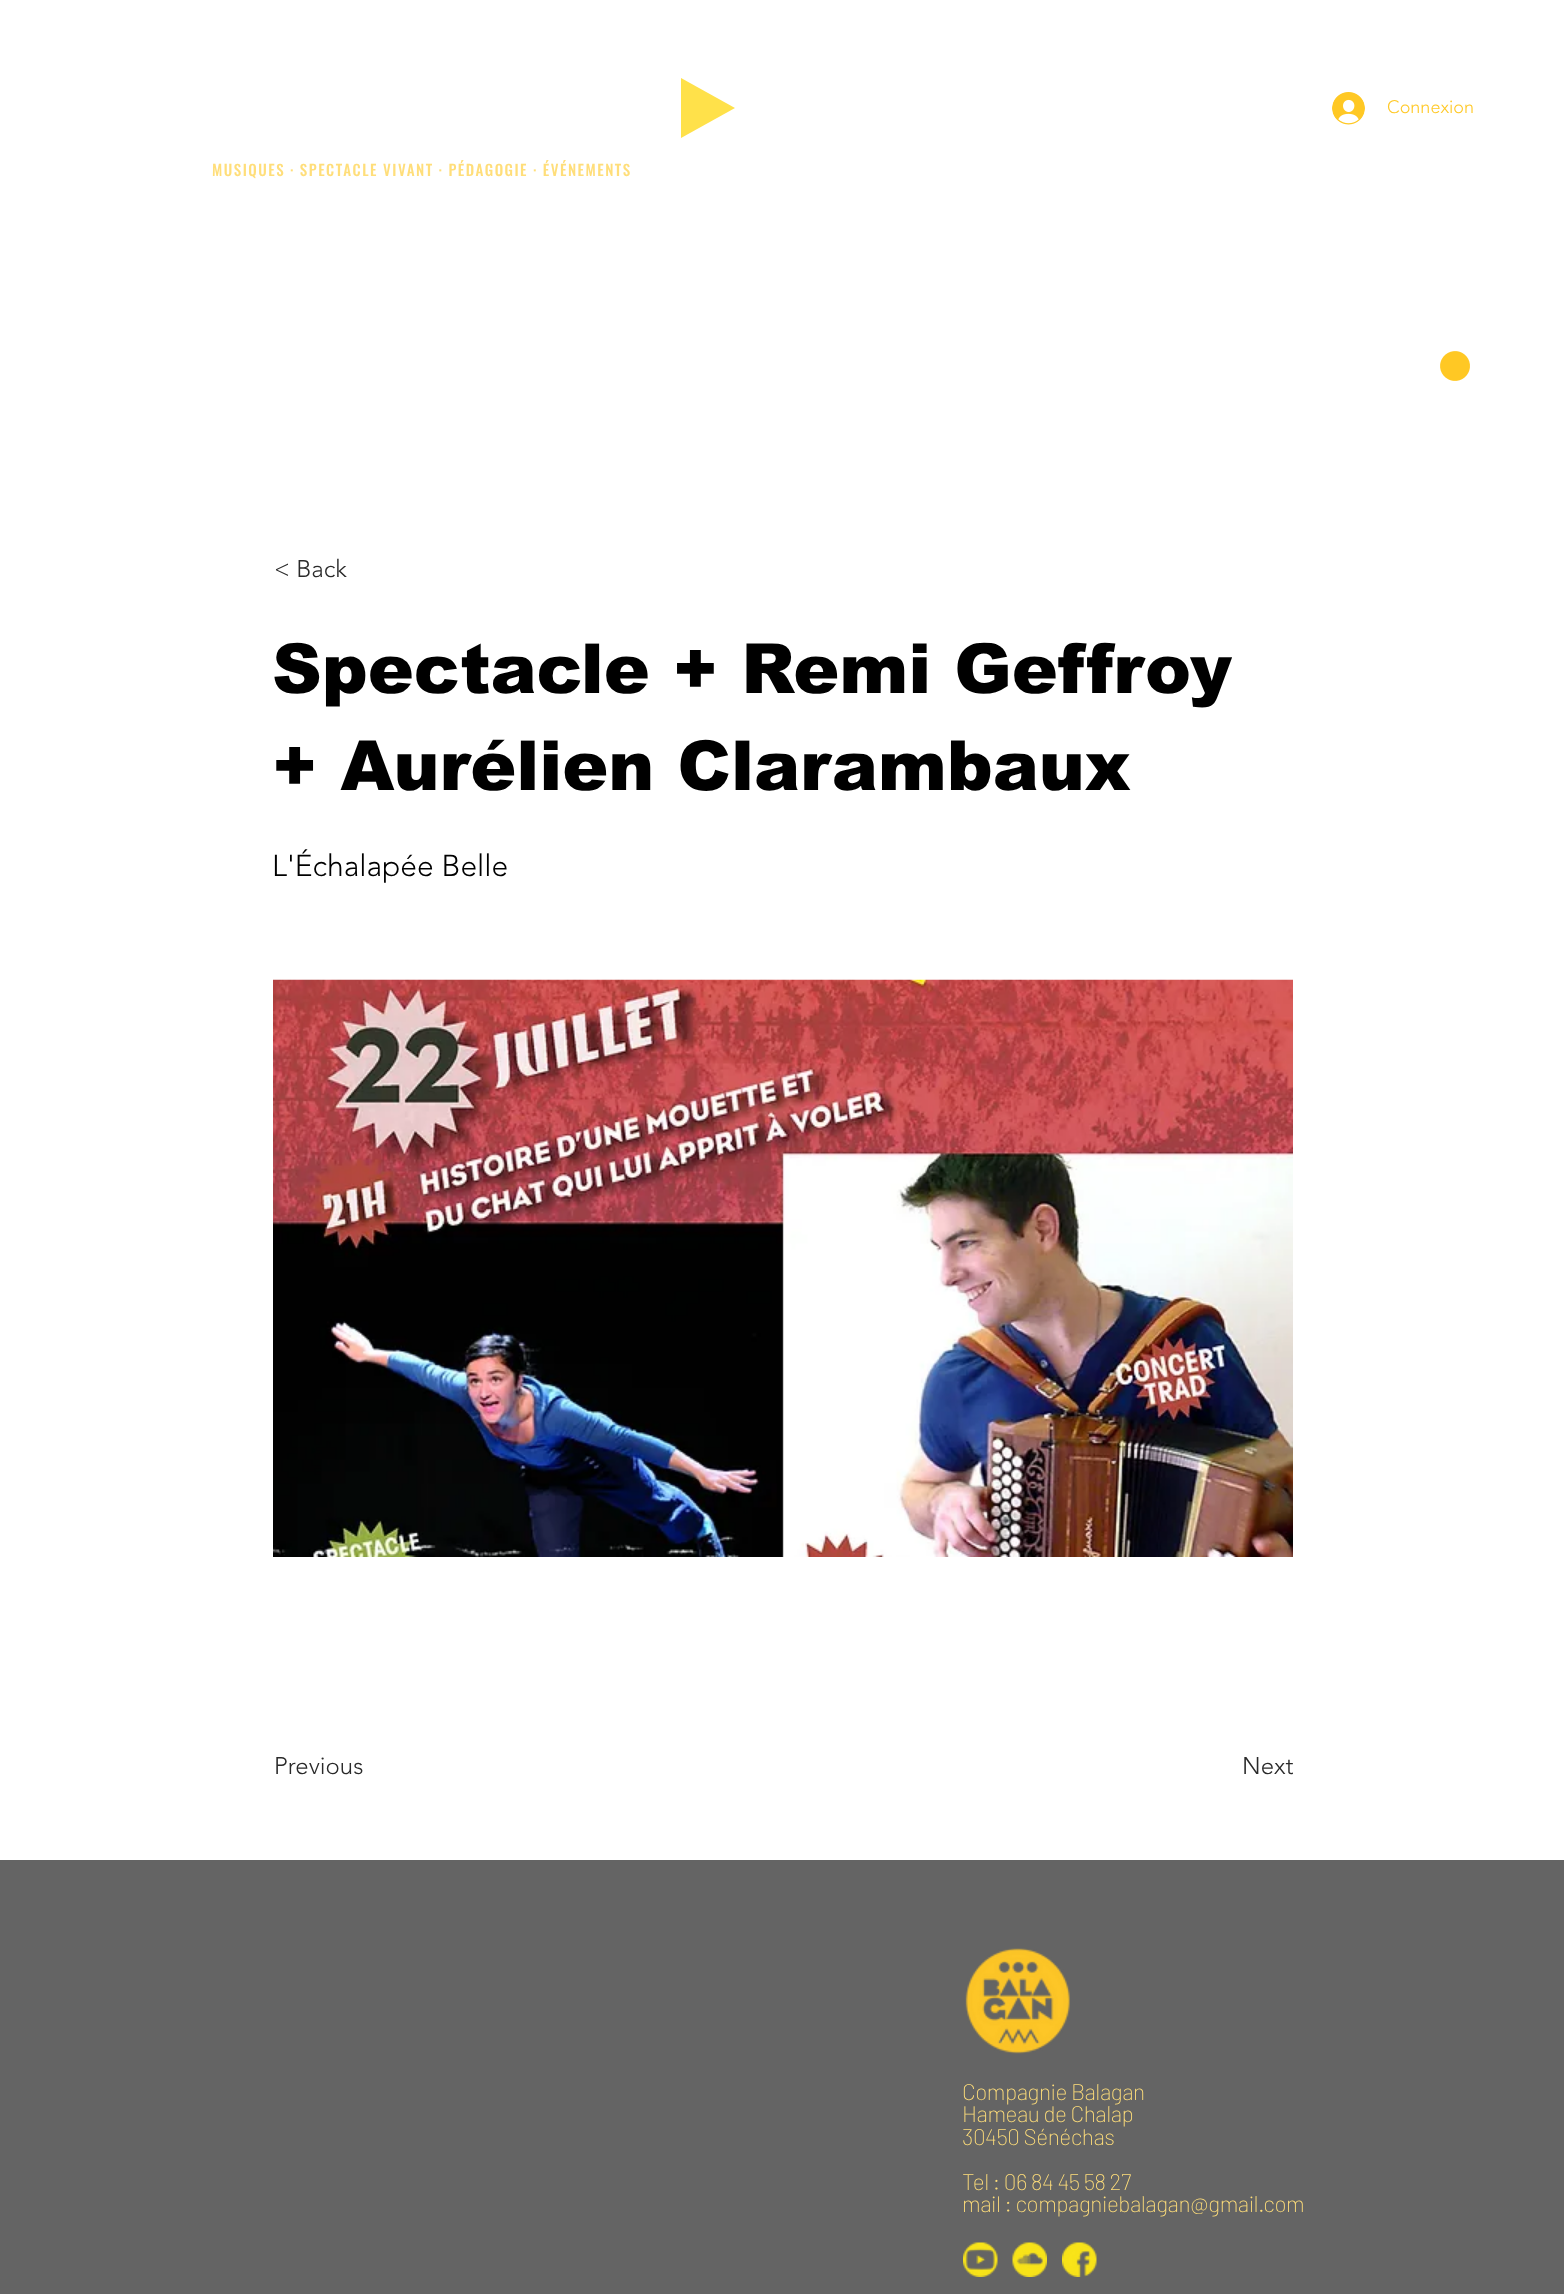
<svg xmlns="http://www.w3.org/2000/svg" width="1564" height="2294">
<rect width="100%" height="100%" fill="#fff"/>
<path d="M681 138v-60l54 30z" fill="#ffe14a"/>
<image x="1332" y="92" width="33" height="33" href="media/1.png"/>
<text x="1387" y="113" style="font-family:'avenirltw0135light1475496';font-size:18px;font-weight:300;fill:#ffc824">Connexion</text>
<text x="212" y="176" style="font-family:Oswald;font-size:15px;font-weight:500;letter-spacing:1.5px;fill:#ffde7a">MUSIQUES · SPECTACLE VIVANT · PÉDAGOGIE · ÉVÉNEMENTS</text>
<image x="1440" y="351" width="30" height="30" href="media/2.png"/>
<text x="274" y="577" style="font-family:'avenirltw0135light1475496';font-size:24px;font-weight:300;fill:#2a2a2a">&lt; Back</text>
<text x="272" y="693" style="font-family:arial;font-size:69px;font-weight:900;fill:#000">Spectacle + Remi Geffroy</text>
<text x="272" y="790" style="font-family:arial;font-size:69px;font-weight:900;fill:#000">+ Aurélien Clarambaux</text>
<text x="272" y="876" style="font-family:'avenirltw0135light1475496';font-size:30px;font-weight:300;fill:#000">L'Échalapée Belle</text>
<image x="273" y="979" width="1020" height="578" href="media/3.png"/>
<text x="274" y="1774" style="font-family:'avenirltw0135light1475496';font-size:24px;font-weight:300;fill:#2a2a2a">Previous</text>
<text x="1242" y="1774" style="font-family:'avenirltw0135light1475496';font-size:24px;font-weight:300;fill:#2a2a2a">Next</text>
<rect y="1860" width="1564" height="434" fill="#646464"/>
<image x="965" y="1948" width="105" height="106" href="media/4.png"/>
<text x="962" y="2100" style="font-family:Barlow;font-size:22.5px;font-weight:200;letter-spacing:-0.45px;fill:#ffde7a">Compagnie Balagan</text>
<text x="962" y="2122" style="font-family:Barlow;font-size:22.5px;font-weight:200;letter-spacing:-0.45px;fill:#ffde7a">Hameau de Chalap</text>
<text x="962" y="2145" style="font-family:Barlow;font-size:22.5px;font-weight:200;letter-spacing:-0.45px;fill:#ffde7a">30450 Sénéchas</text>
<text x="962" y="2190" style="font-family:Barlow;font-size:22.5px;font-weight:200;letter-spacing:-0.45px;fill:#ffde7a">Tel : 06 84 45 58 27</text>
<text x="962" y="2212" style="font-family:Barlow;font-size:22.5px;font-weight:200;letter-spacing:-0.45px;fill:#ffde7a">mail : compagniebalagan@gmail.com</text>
<image x="963" y="2242" width="35" height="35" href="media/5.png"/>
<image x="1012" y="2242" width="35" height="35" href="media/6.png"/>
<image x="1062" y="2242" width="35" height="35" href="media/7.png"/>
</svg>
